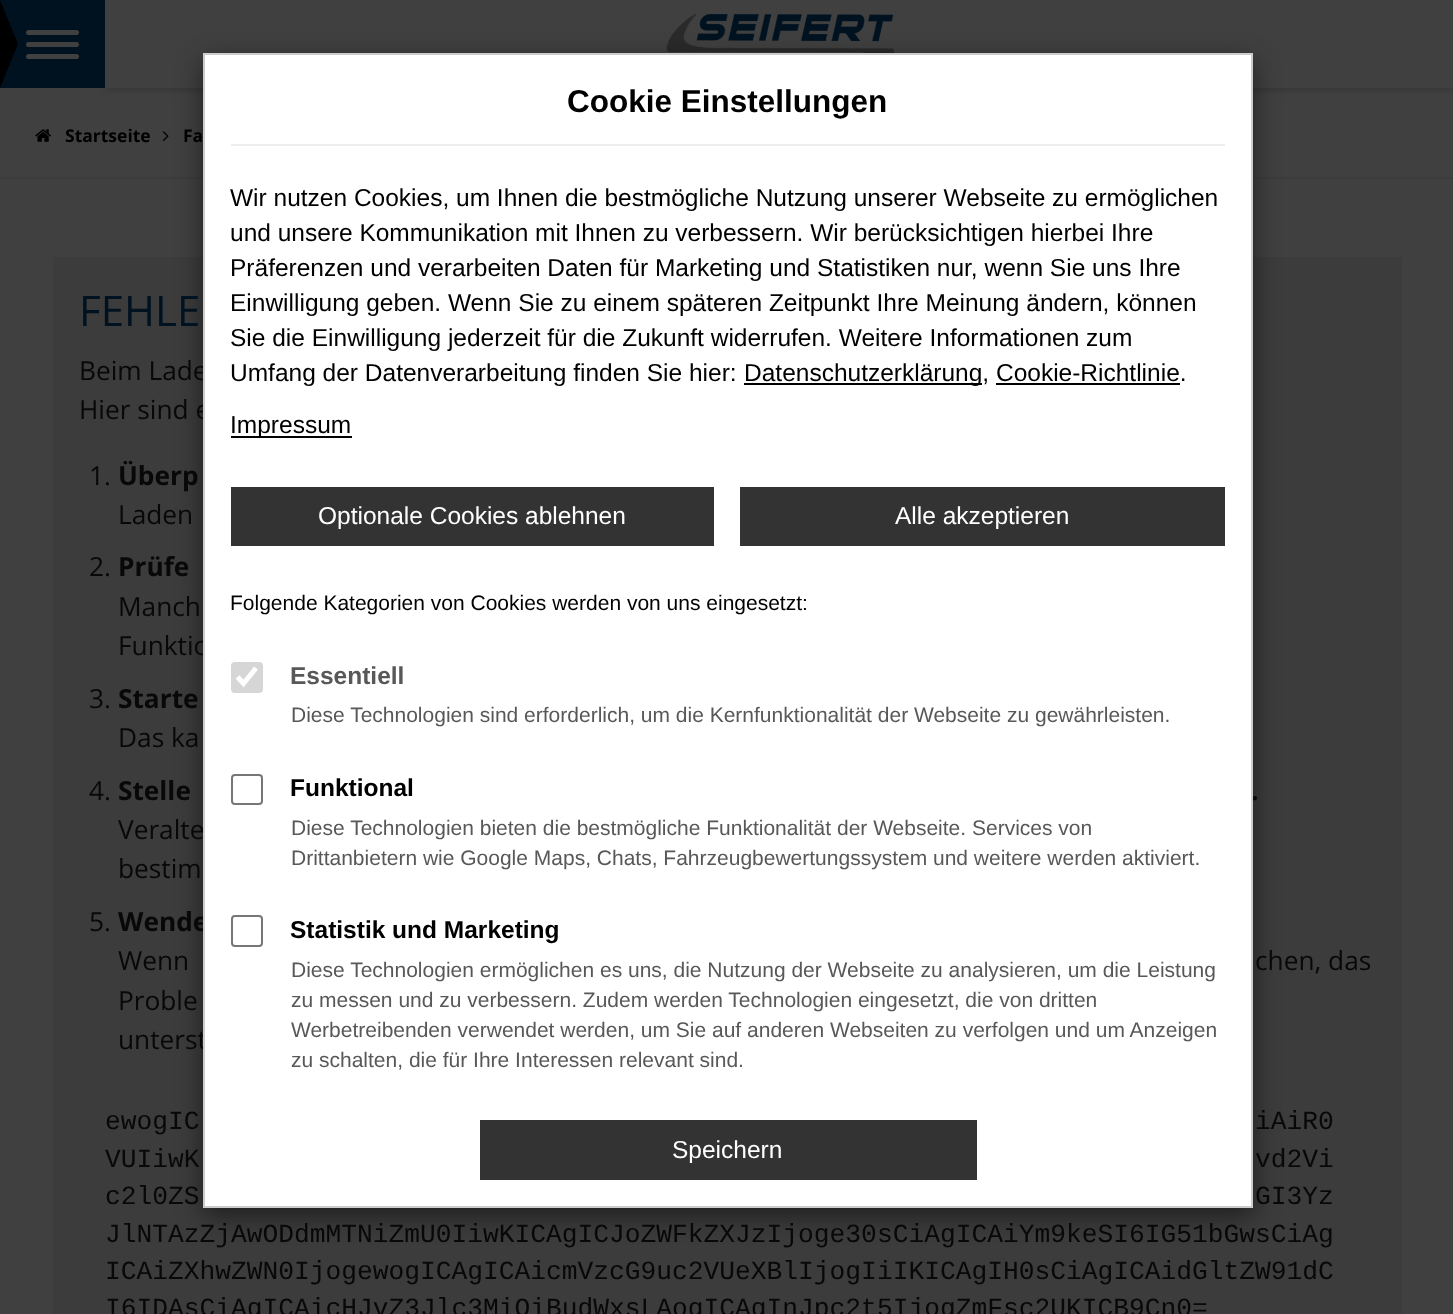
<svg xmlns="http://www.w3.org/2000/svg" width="1453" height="1314">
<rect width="100%" height="100%" fill="#404040"/>
<rect x="107" width="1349" height="88" fill="#00000040" filter="blur(4.5px)"/>
<rect x="105" width="1348" height="88" fill="#404040"/>
<image x="666" y="14" width="229" height="39" href="media/1.png"/>
<rect y="177" width="1453" height="2" fill="#3c3c3c"/>
<image x="162" y="131" width="7" height="10" href="media/3.png"/>
<rect x="53" y="257" width="1349" height="1057" fill="#3c3c3c"/>
<rect x="203" y="61" width="1050" height="1155" fill="#00000080" filter="blur(13px)"/>
<text x="79" y="380" style="font-family:Open Sans;font-size:26.25px;fill:#080808">Beim Lade</text>
<text x="79" y="419" style="font-family:Open Sans;font-size:26.25px;fill:#080808">Hier sind e</text>
<text x="118" y="655" style="font-family:Open Sans;font-size:26.25px;fill:#080808">Funktio</text>
<text x="1251" y="800" style="font-family:Open Sans;font-size:26.25px;font-weight:bold;fill:#080808">.</text>
<text x="118" y="839" style="font-family:Open Sans;font-size:26.25px;fill:#080808">Veralte</text>
<text x="118" y="931" style="font-family:Open Sans;font-size:26.25px;font-weight:bold;fill:#080808">Wende</text>
<text x="118" y="1049" style="font-family:Open Sans;font-size:26.25px;fill:#080808">unterst</text>
<rect x="204" y="54" width="1048" height="1153" fill="#fff" stroke="#ccc" stroke-width="2"/>
<rect x="231" y="144" width="994" height="2" fill="#eee"/>
<text x="567" y="112" style="font-family:Liberation Sans;font-size:31.5px;font-weight:bold;fill:#000">Cookie Einstellungen</text>
<text x="230" y="206" style="font-family:Liberation Sans;font-size:24.5px;fill:#000">Wir nutzen Cookies, um Ihnen die bestmögliche Nutzung unserer Webseite zu ermöglichen</text>
<text x="230" y="241" style="font-family:Liberation Sans;font-size:24.5px;fill:#000">und unsere Kommunikation mit Ihnen zu verbessern. Wir berücksichtigen hierbei Ihre</text>
<text x="230" y="276" style="font-family:Liberation Sans;font-size:24.5px;fill:#000">Präferenzen und verarbeiten Daten für Marketing und Statistiken nur, wenn Sie uns Ihre</text>
<text x="230" y="311" style="font-family:Liberation Sans;font-size:24.5px;fill:#000">Einwilligung geben. Wenn Sie zu einem späteren Zeitpunkt Ihre Meinung ändern, können</text>
<text x="230" y="346" style="font-family:Liberation Sans;font-size:24.5px;fill:#000">Sie die Einwilligung jederzeit für die Zukunft widerrufen. Weitere Informationen zum</text>
<text x="230" y="381" style="font-family:Liberation Sans;font-size:24.5px;fill:#000">Umfang der Datenverarbeitung finden Sie hier:</text>
<rect x="744" y="383" width="238" height="2" fill="#000"/>
<text x="744" y="381" style="font-family:Liberation Sans;font-size:24.5px;fill:#000">Datenschutzerklärung, Cookie-Richtlinie.</text>
<rect x="996" y="383" width="184" height="2" fill="#000"/>
<rect x="231" y="436" width="121" height="2" fill="#000"/>
<text x="230" y="433" style="font-family:Liberation Sans;font-size:24.5px;fill:#000">Impressum</text>
<rect x="231" y="487" width="483" height="59" fill="#333"/>
<text x="318" y="524" style="font-family:Liberation Sans;font-size:24.5px;fill:#fff">Optionale Cookies ablehnen</text>
<rect x="740" y="487" width="485" height="59" fill="#333"/>
<text x="895" y="524" style="font-family:Liberation Sans;font-size:24.5px;fill:#fff">Alle akzeptieren</text>
<text x="230" y="610" style="font-family:Liberation Sans;font-size:21px;fill:#000">Folgende Kategorien von Cookies werden von uns eingesetzt:</text>
<rect x="231" y="662" width="32" height="31" rx="4" fill="#d6d6d6"/>
<path d="M237.5 677l6 6.5l12.5-15.5" fill="none" stroke="#fff" stroke-width="5"/>
<text x="290" y="684" style="font-family:Liberation Sans;font-size:24.5px;font-weight:bold;fill:#585858">Essentiell</text>
<text x="291" y="722" style="font-family:Liberation Sans;font-size:21px;fill:#585858">Diese Technologien sind erforderlich, um die Kernfunktionalität der Webseite zu gewährleisten.</text>
<rect x="232" y="775" width="30" height="29" rx="3" fill="none" stroke="#767676" stroke-width="2"/>
<text x="290" y="796" style="font-family:Liberation Sans;font-size:24.5px;font-weight:bold;fill:#000">Funktional</text>
<text x="291" y="835" style="font-family:Liberation Sans;font-size:21px;fill:#585858">Diese Technologien bieten die bestmögliche Funktionalität der Webseite. Services von</text>
<text x="291" y="865" style="font-family:Liberation Sans;font-size:21px;fill:#585858">Drittanbietern wie Google Maps, Chats, Fahrzeugbewertungssystem und weitere werden aktiviert.</text>
<rect x="232" y="916" width="30" height="30" rx="3" fill="none" stroke="#767676" stroke-width="2"/>
<text x="290" y="938" style="font-family:Liberation Sans;font-size:24.5px;font-weight:bold;fill:#000">Statistik und Marketing</text>
<text x="291" y="977" style="font-family:Liberation Sans;font-size:21px;fill:#585858">Diese Technologien ermöglichen es uns, die Nutzung der Webseite zu analysieren, um die Leistung</text>
<text x="291" y="1007" style="font-family:Liberation Sans;font-size:21px;fill:#585858">zu messen und zu verbessern. Zudem werden Technologien eingesetzt, die von dritten</text>
<text x="291" y="1037" style="font-family:Liberation Sans;font-size:21px;fill:#585858">Werbetreibenden verwendet werden, um Sie auf anderen Webseiten zu verfolgen und um Anzeigen</text>
<text x="291" y="1067" style="font-family:Liberation Sans;font-size:21px;fill:#585858">zu schalten, die für Ihre Interessen relevant sind.</text>
<rect x="480" y="1120" width="497" height="60" fill="#333"/>
<text x="672" y="1158" style="font-family:Liberation Sans;font-size:24.5px;fill:#fff">Speichern</text>
<rect width="105" height="88" fill="#00121f"/>
<path d="M0 88v-88l18 44z" fill="#000"/>
<rect x="26" y="42" width="53" height="5" rx="2.5" fill="#404040"/>
<rect x="26" y="30" width="53" height="5" rx="2.5" fill="#404040"/>
<rect x="26" y="54" width="53" height="5" rx="2.5" fill="#404040"/>
<image x="35" y="129" width="16" height="13" href="media/2.png"/>
<text x="65" y="142" style="font-family:Open Sans;font-size:17.5px;font-weight:bold;fill:#000">Startseite</text>
<text x="183" y="142" style="font-family:Open Sans;font-size:17.5px;font-weight:bold;fill:#000">Fa</text>
<text x="79" y="326" style="font-family:Open Sans;font-size:42px;fill:#00121f">FEHLE</text>
<text x="89" y="485" style="font-family:Open Sans;font-size:26.25px;fill:#080808">1.</text>
<text x="118" y="485" style="font-family:Open Sans;font-size:26.25px;font-weight:bold;fill:#080808">Überp</text>
<text x="118" y="524" style="font-family:Open Sans;font-size:26.25px;fill:#080808">Laden</text>
<text x="89" y="576" style="font-family:Open Sans;font-size:26.25px;fill:#080808">2.</text>
<text x="118" y="576" style="font-family:Open Sans;font-size:26.25px;font-weight:bold;fill:#080808">Prüfe</text>
<text x="118" y="616" style="font-family:Open Sans;font-size:26.25px;fill:#080808">Manch</text>
<text x="89" y="708" style="font-family:Open Sans;font-size:26.25px;fill:#080808">3.</text>
<text x="118" y="708" style="font-family:Open Sans;font-size:26.25px;font-weight:bold;fill:#080808">Starte</text>
<text x="118" y="747" style="font-family:Open Sans;font-size:26.25px;fill:#080808">Das ka</text>
<text x="89" y="800" style="font-family:Open Sans;font-size:26.25px;fill:#080808">4.</text>
<text x="118" y="800" style="font-family:Open Sans;font-size:26.25px;font-weight:bold;fill:#080808">Stelle</text>
<text x="118" y="878" style="font-family:Open Sans;font-size:26.25px;fill:#080808">bestim</text>
<text x="89" y="931" style="font-family:Open Sans;font-size:26.25px;fill:#080808">5.</text>
<text x="118" y="970" style="font-family:Open Sans;font-size:26.25px;fill:#080808">Wenn</text>
<text x="1255" y="970" style="font-family:Open Sans;font-size:26.25px;fill:#080808">chen, das</text>
<text x="118" y="1010" style="font-family:Open Sans;font-size:26.25px;fill:#080808">Proble</text>
<text x="105" y="1129" style="font-family:Liberation Mono;font-size:26.25px;fill:#080808">ewogIC</text>
<text x="1255" y="1129" style="font-family:Liberation Mono;font-size:26.25px;fill:#080808">iAiR0</text>
<text x="105" y="1167" style="font-family:Liberation Mono;font-size:26.25px;fill:#080808">VUIiwK</text>
<text x="1255" y="1167" style="font-family:Liberation Mono;font-size:26.25px;fill:#080808">vd2Vi</text>
<text x="105" y="1204" style="font-family:Liberation Mono;font-size:26.25px;fill:#080808">c2l0ZS</text>
<text x="1255" y="1204" style="font-family:Liberation Mono;font-size:26.25px;fill:#080808">GI3Yz</text>
<text x="105" y="1242" style="font-family:Liberation Mono;font-size:26.25px;fill:#080808">JlNTAzZjAwODdmMTNiZmU0IiwKICAgICJoZWFkZXJzIjoge30sCiAgICAiYm9keSI6IG51bGwsCiAg</text>
<text x="105" y="1279" style="font-family:Liberation Mono;font-size:26.25px;fill:#080808">ICAiZXhwZWN0IjogewogICAgICAicmVzcG9uc2VUeXBlIjogIiIKICAgIH0sCiAgICAidGltZW91dC</text>
<text x="105" y="1316" style="font-family:Liberation Mono;font-size:26.25px;fill:#080808">I6IDAsCiAgICAicHJvZ3Jlc3MiOiBudWxsLAogICAgInJpc2t5IjogZmFsc2UKICB9Cn0=</text>
</svg>
